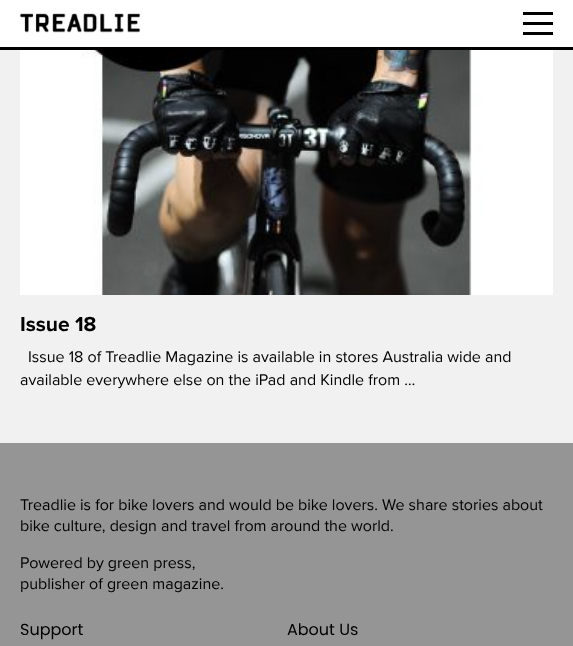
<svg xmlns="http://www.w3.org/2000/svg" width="573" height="646">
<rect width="100%" height="100%" fill="#f1f1f1"/>
<rect width="573" height="47" fill="#fff"/>
<rect y="47" width="573" height="3" fill="#000"/>
<image x="20" y="13" width="120" height="20" href="media/1.png"/>
<rect x="523" y="22" width="30" height="3" fill="#000"/>
<rect x="523" y="12" width="30" height="3" fill="#000"/>
<rect x="523" y="32" width="30" height="3" fill="#000"/>
<image x="20" y="50" width="533" height="245" href="media/2.png"/>
<text x="20" y="331" style="font-family:Proxima Nova;font-size:21px;font-weight:bold;fill:#000">Issue 18</text>
<text x="28" y="362" style="font-family:Proxima Nova;font-size:16px;fill:#000">Issue 18 of Treadlie Magazine is available in stores Australia wide and</text>
<text x="20" y="385" style="font-family:Proxima Nova;font-size:16px;fill:#000">available everywhere else on the iPad and Kindle from …</text>
<rect y="443" width="573" height="203" fill="#969595"/>
<text x="20" y="510" style="font-family:Proxima Nova;font-size:16px;fill:#000">Treadlie is for bike lovers and would be bike lovers. We share stories about</text>
<text x="20" y="531" style="font-family:Proxima Nova;font-size:16px;fill:#000">bike culture, design and travel from around the world.</text>
<text x="20" y="568" style="font-family:Proxima Nova;font-size:16px;fill:#000">Powered by green press,</text>
<text x="20" y="589" style="font-family:Proxima Nova;font-size:16px;fill:#000">publisher of green magazine.</text>
<text x="20" y="635" style="font-family:Poppins;font-size:16px;fill:#000">Support</text>
<text x="287" y="635" style="font-family:Poppins;font-size:16px;fill:#000">About Us</text>
</svg>
